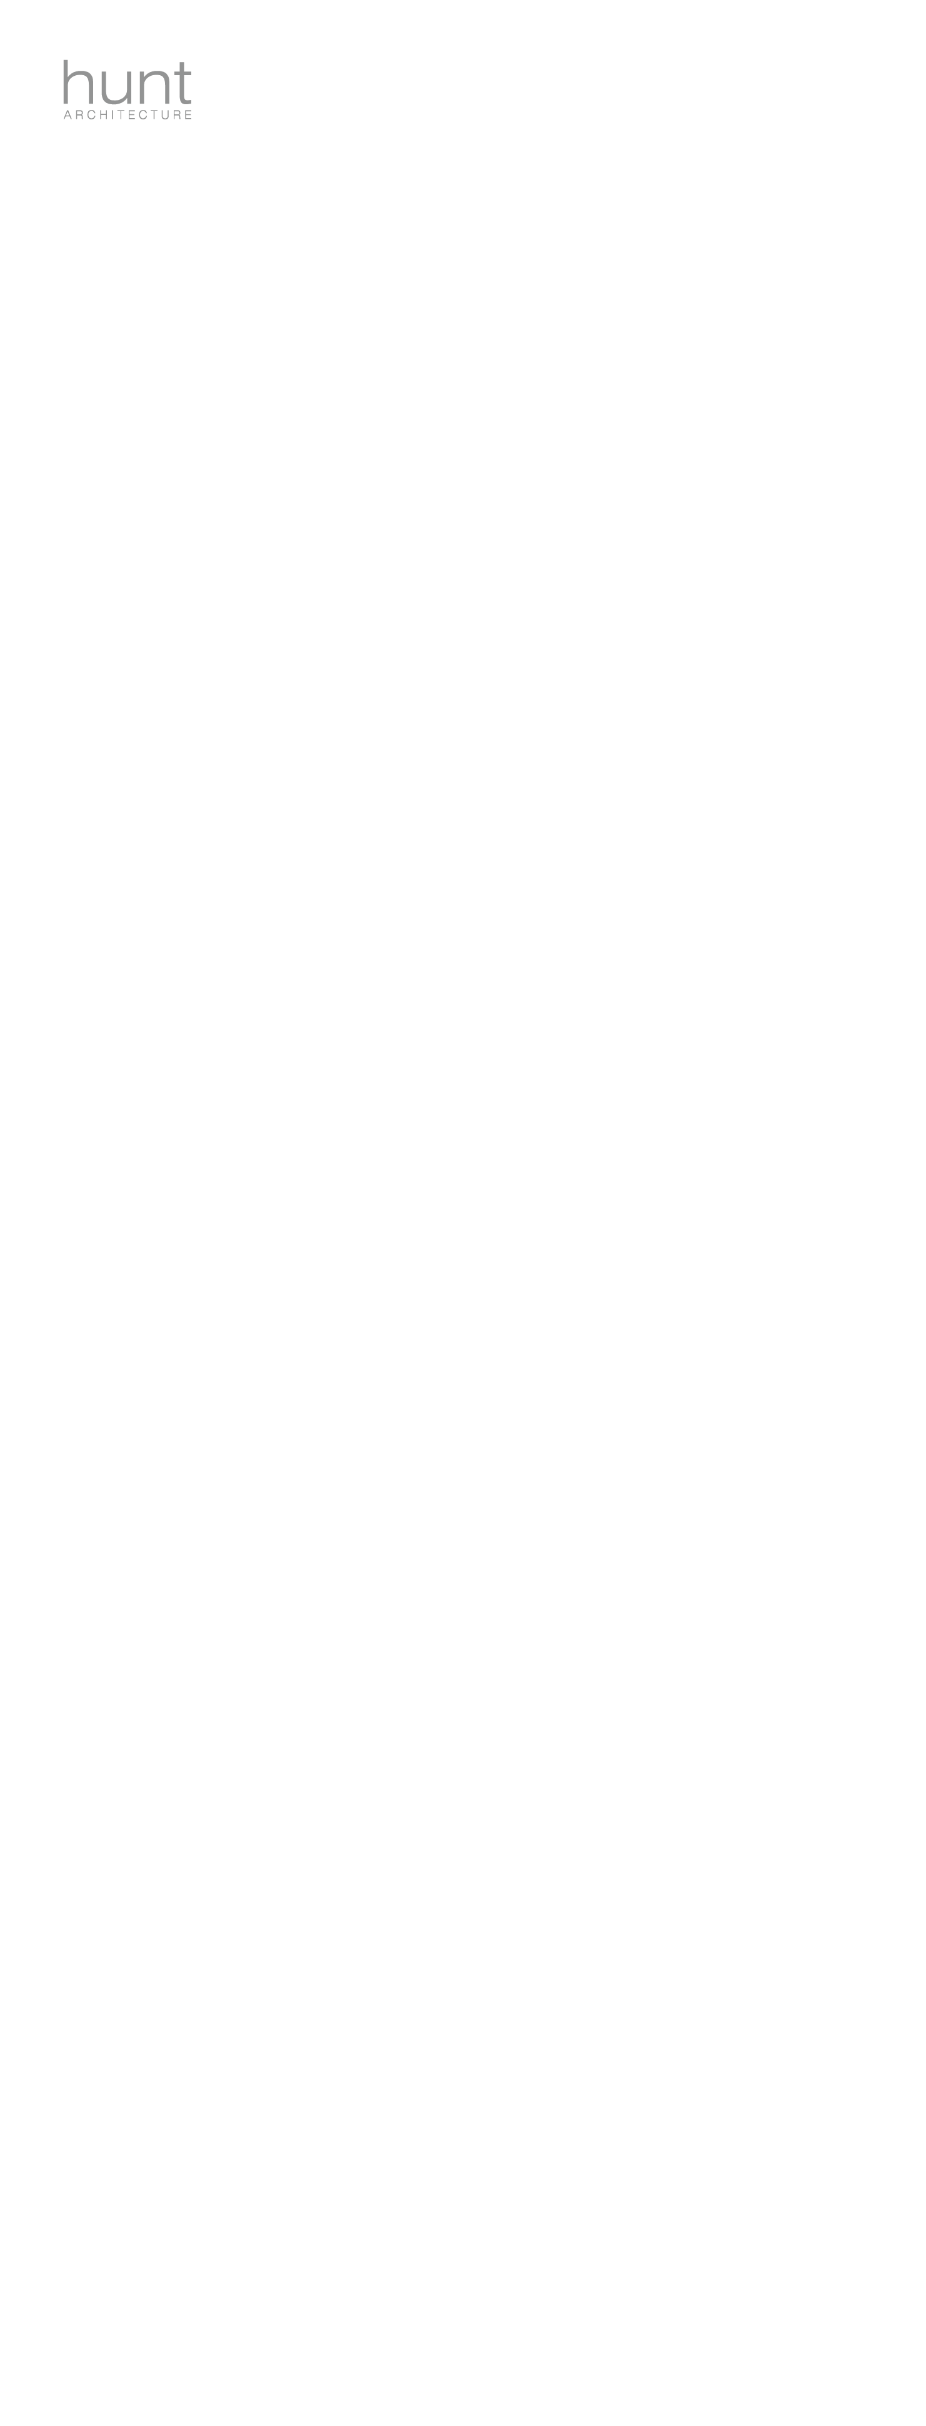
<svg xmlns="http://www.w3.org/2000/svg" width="926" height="2426">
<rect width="100%" height="100%" fill="#fff"/>
<image x="63" y="59" width="129" height="61" href="media/1.png"/>
</svg>
